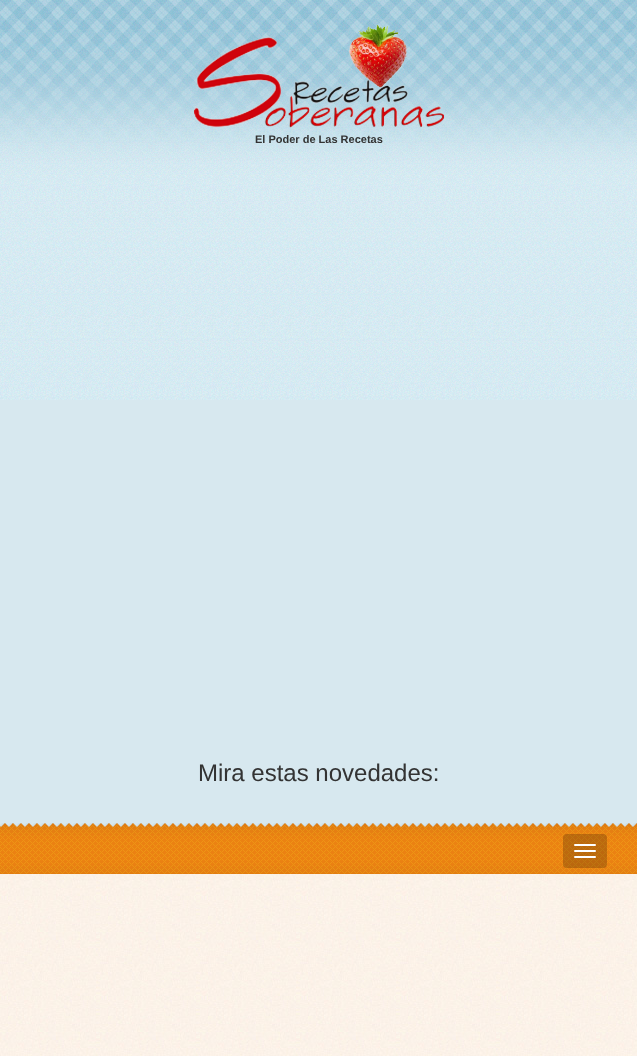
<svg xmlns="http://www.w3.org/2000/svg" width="637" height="1056">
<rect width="100%" height="100%" fill="#fff"/>
<image x="0" y="874" width="637" height="182" href="media/1.png"/>
<rect y="400" width="637" height="427" fill="#d7e8ef"/>
<image x="0" y="0" width="637" height="400" href="media/2.png"/>
<image x="194" y="25" width="250" height="103" href="media/3.png"/>
<text x="255" y="143" style="font-family:Liberation Sans;font-size:11px;font-weight:bold;fill:#333">El Poder de Las Recetas</text>
<text x="198" y="781" style="font-family:Liberation Sans;font-size:24px;fill:#333">Mira estas novedades:</text>
<image x="0" y="823" width="637" height="51" href="media/4.png"/>
<rect x="563" y="834" width="44" height="34" rx="4" fill="#00000033"/>
<rect x="574" y="844" width="22" height="2" rx="1" fill="#fff"/>
<rect x="574" y="850" width="22" height="2" rx="1" fill="#fff"/>
<rect x="574" y="856" width="22" height="2" rx="1" fill="#fff"/>
</svg>
